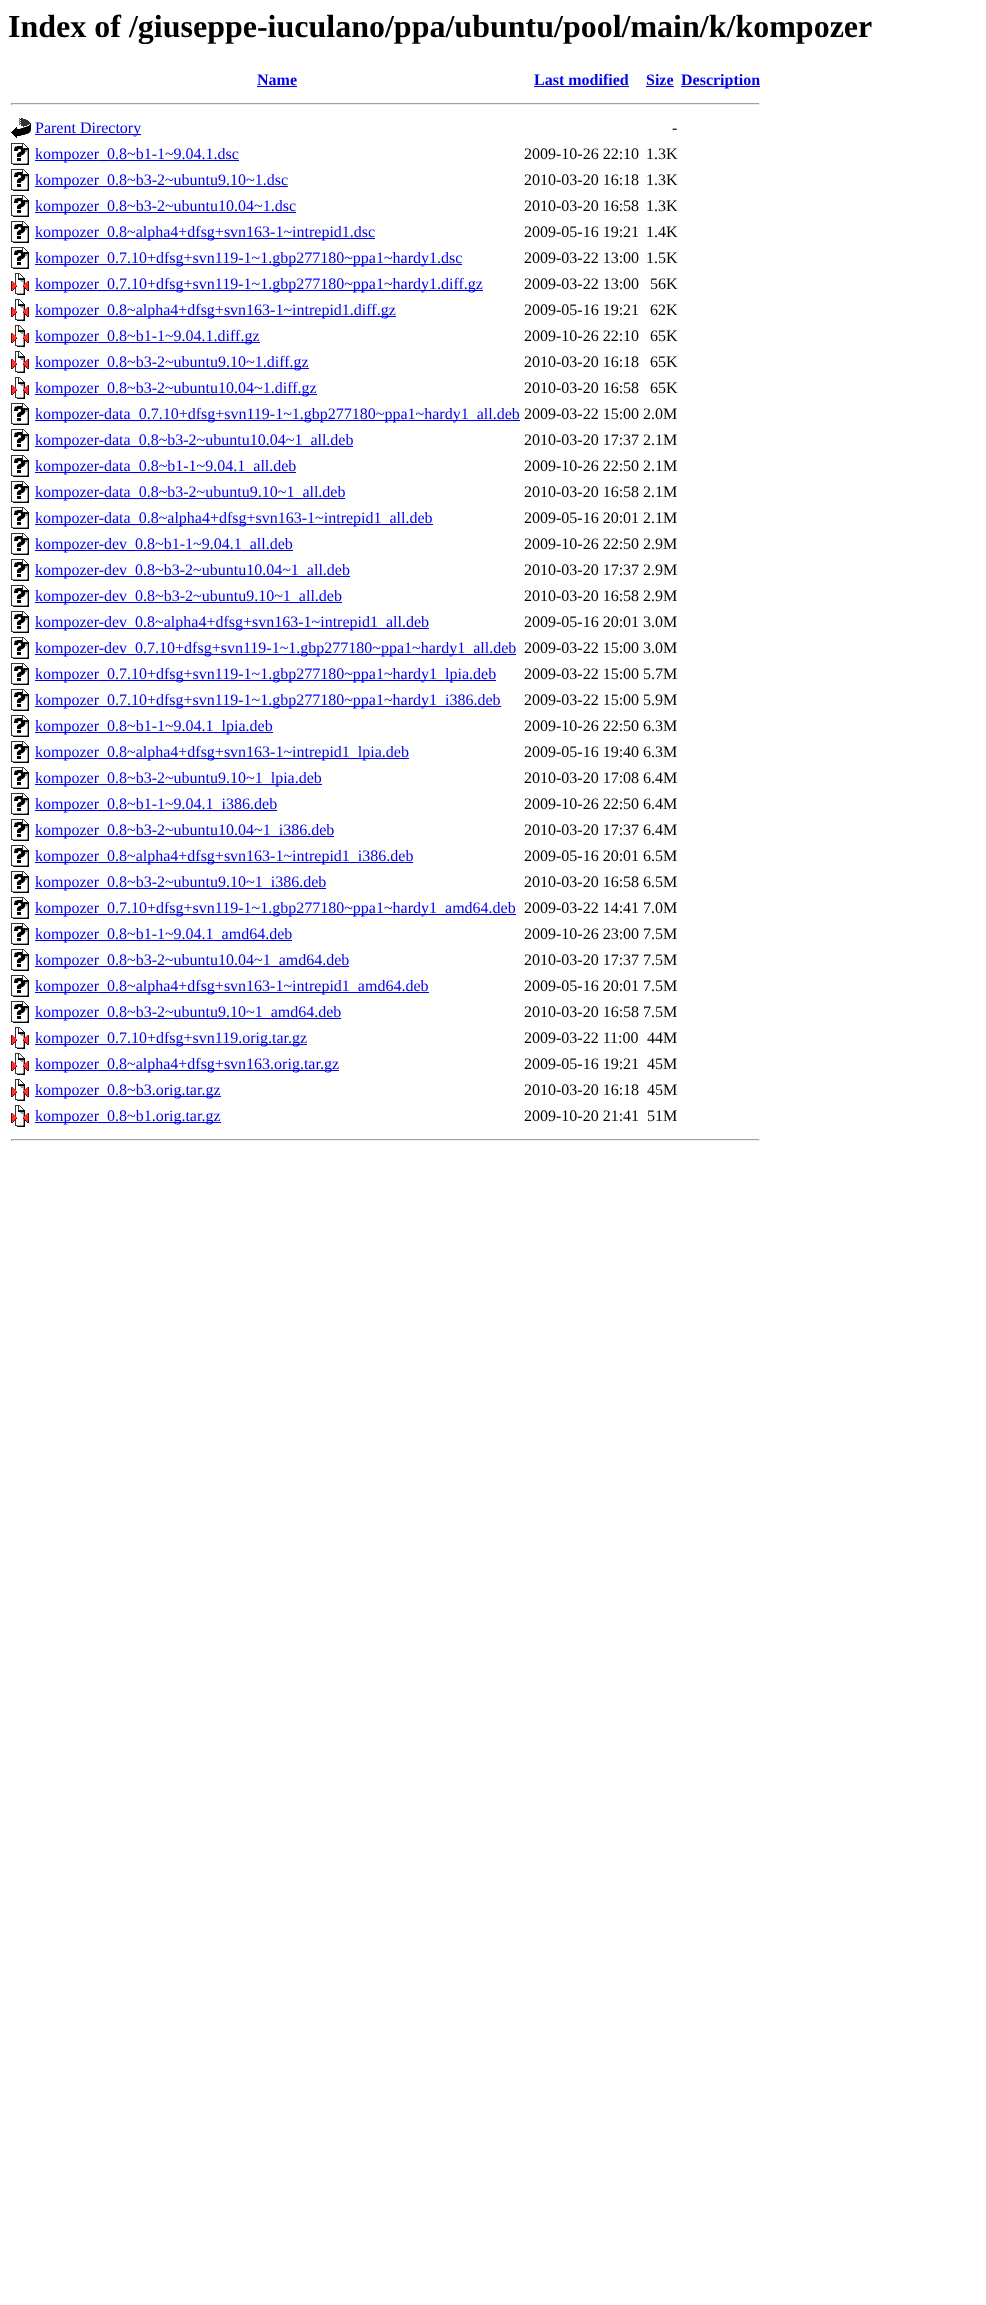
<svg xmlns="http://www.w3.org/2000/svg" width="986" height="2305">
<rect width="100%" height="100%" fill="#fff"/>
<text x="8" y="37" style="font-family:Liberation Serif;font-size:32px;font-weight:bold;fill:#000">Index of /giuseppe-iuculano/ppa/ubuntu/pool/main/k/kompozer</text>
<text x="257" y="85" style="font-family:Liberation Serif;font-size:16px;font-weight:bold;fill:#00e">Name</text>
<rect x="257" y="86" width="40" height="1" fill="#00e"/>
<text x="534" y="85" style="font-family:Liberation Serif;font-size:16px;font-weight:bold;fill:#00e">Last modified</text>
<rect x="534" y="86" width="95" height="1" fill="#00e"/>
<text x="646" y="85" style="font-family:Liberation Serif;font-size:16px;font-weight:bold;fill:#00e">Size</text>
<rect x="646" y="86" width="28" height="1" fill="#00e"/>
<rect x="681" y="86" width="79" height="1" fill="#00e"/>
<text x="681" y="85" style="font-family:Liberation Serif;font-size:16px;font-weight:bold;fill:#00e">Description</text>
<rect x="11" y="103" width="749" height="1" fill="#9f9f9f"/>
<rect x="759" y="103" width="1" height="2" fill="#eee"/>
<rect x="11" y="104" width="749" height="1" fill="#eee"/>
<rect x="11" y="103" width="1" height="2" fill="#9f9f9f"/>
<image x="11" y="118" width="20" height="20" href="media/1.png"/>
<rect x="35" y="134" width="106" height="1" fill="#00e"/>
<text x="35" y="133" style="font-family:Liberation Serif;font-size:16px;fill:#00e">Parent Directory</text>
<text x="672" y="133" style="font-family:Liberation Serif;font-size:16px;fill:#000">-</text>
<image x="11" y="143" width="18" height="22" href="media/2.png"/>
<rect x="35" y="160" width="204" height="1" fill="#00e"/>
<text x="35" y="159" style="font-family:Liberation Serif;font-size:16px;fill:#00e">kompozer_0.8~b1-1~9.04.1.dsc</text>
<text x="524" y="159" style="font-family:Liberation Serif;font-size:16px;fill:#000">2009-10-26 22:10</text>
<text x="646" y="159" style="font-family:Liberation Serif;font-size:16px;fill:#000">1.3K</text>
<image x="11" y="169" width="18" height="22" href="media/2.png"/>
<rect x="35" y="186" width="253" height="1" fill="#00e"/>
<text x="35" y="185" style="font-family:Liberation Serif;font-size:16px;fill:#00e">kompozer_0.8~b3-2~ubuntu9.10~1.dsc</text>
<text x="524" y="185" style="font-family:Liberation Serif;font-size:16px;fill:#000">2010-03-20 16:18</text>
<text x="646" y="185" style="font-family:Liberation Serif;font-size:16px;fill:#000">1.3K</text>
<image x="11" y="195" width="18" height="22" href="media/2.png"/>
<rect x="35" y="212" width="261" height="1" fill="#00e"/>
<text x="35" y="211" style="font-family:Liberation Serif;font-size:16px;fill:#00e">kompozer_0.8~b3-2~ubuntu10.04~1.dsc</text>
<text x="524" y="211" style="font-family:Liberation Serif;font-size:16px;fill:#000">2010-03-20 16:58</text>
<text x="646" y="211" style="font-family:Liberation Serif;font-size:16px;fill:#000">1.3K</text>
<image x="11" y="221" width="18" height="22" href="media/2.png"/>
<rect x="35" y="238" width="340" height="1" fill="#00e"/>
<text x="35" y="237" style="font-family:Liberation Serif;font-size:16px;fill:#00e">kompozer_0.8~alpha4+dfsg+svn163-1~intrepid1.dsc</text>
<text x="524" y="237" style="font-family:Liberation Serif;font-size:16px;fill:#000">2009-05-16 19:21</text>
<text x="646" y="237" style="font-family:Liberation Serif;font-size:16px;fill:#000">1.4K</text>
<image x="11" y="247" width="18" height="22" href="media/2.png"/>
<rect x="35" y="264" width="427" height="1" fill="#00e"/>
<text x="35" y="263" style="font-family:Liberation Serif;font-size:16px;fill:#00e">kompozer_0.7.10+dfsg+svn119-1~1.gbp277180~ppa1~hardy1.dsc</text>
<text x="524" y="263" style="font-family:Liberation Serif;font-size:16px;fill:#000">2009-03-22 13:00</text>
<text x="646" y="263" style="font-family:Liberation Serif;font-size:16px;fill:#000">1.5K</text>
<image x="11" y="273" width="18" height="22" href="media/3.png"/>
<rect x="35" y="290" width="448" height="1" fill="#00e"/>
<text x="35" y="289" style="font-family:Liberation Serif;font-size:16px;fill:#00e">kompozer_0.7.10+dfsg+svn119-1~1.gbp277180~ppa1~hardy1.diff.gz</text>
<text x="524" y="289" style="font-family:Liberation Serif;font-size:16px;fill:#000">2009-03-22 13:00</text>
<text x="650" y="289" style="font-family:Liberation Serif;font-size:16px;fill:#000">56K</text>
<image x="11" y="299" width="18" height="22" href="media/3.png"/>
<rect x="35" y="316" width="361" height="1" fill="#00e"/>
<text x="35" y="315" style="font-family:Liberation Serif;font-size:16px;fill:#00e">kompozer_0.8~alpha4+dfsg+svn163-1~intrepid1.diff.gz</text>
<text x="524" y="315" style="font-family:Liberation Serif;font-size:16px;fill:#000">2009-05-16 19:21</text>
<text x="650" y="315" style="font-family:Liberation Serif;font-size:16px;fill:#000">62K</text>
<image x="11" y="325" width="18" height="22" href="media/3.png"/>
<rect x="35" y="342" width="225" height="1" fill="#00e"/>
<text x="35" y="341" style="font-family:Liberation Serif;font-size:16px;fill:#00e">kompozer_0.8~b1-1~9.04.1.diff.gz</text>
<text x="524" y="341" style="font-family:Liberation Serif;font-size:16px;fill:#000">2009-10-26 22:10</text>
<text x="650" y="341" style="font-family:Liberation Serif;font-size:16px;fill:#000">65K</text>
<image x="11" y="351" width="18" height="22" href="media/3.png"/>
<rect x="35" y="368" width="274" height="1" fill="#00e"/>
<text x="35" y="367" style="font-family:Liberation Serif;font-size:16px;fill:#00e">kompozer_0.8~b3-2~ubuntu9.10~1.diff.gz</text>
<text x="524" y="367" style="font-family:Liberation Serif;font-size:16px;fill:#000">2010-03-20 16:18</text>
<text x="650" y="367" style="font-family:Liberation Serif;font-size:16px;fill:#000">65K</text>
<image x="11" y="377" width="18" height="22" href="media/3.png"/>
<rect x="35" y="394" width="282" height="1" fill="#00e"/>
<text x="35" y="393" style="font-family:Liberation Serif;font-size:16px;fill:#00e">kompozer_0.8~b3-2~ubuntu10.04~1.diff.gz</text>
<text x="524" y="393" style="font-family:Liberation Serif;font-size:16px;fill:#000">2010-03-20 16:58</text>
<text x="650" y="393" style="font-family:Liberation Serif;font-size:16px;fill:#000">65K</text>
<image x="11" y="403" width="18" height="22" href="media/2.png"/>
<rect x="35" y="420" width="485" height="1" fill="#00e"/>
<text x="35" y="419" style="font-family:Liberation Serif;font-size:16px;fill:#00e">kompozer-data_0.7.10+dfsg+svn119-1~1.gbp277180~ppa1~hardy1_all.deb</text>
<text x="524" y="419" style="font-family:Liberation Serif;font-size:16px;fill:#000">2009-03-22 15:00 2.0M</text>
<image x="11" y="429" width="18" height="22" href="media/2.png"/>
<rect x="35" y="446" width="318" height="1" fill="#00e"/>
<text x="35" y="445" style="font-family:Liberation Serif;font-size:16px;fill:#00e">kompozer-data_0.8~b3-2~ubuntu10.04~1_all.deb</text>
<text x="524" y="445" style="font-family:Liberation Serif;font-size:16px;fill:#000">2010-03-20 17:37 2.1M</text>
<image x="11" y="455" width="18" height="22" href="media/2.png"/>
<rect x="35" y="472" width="261" height="1" fill="#00e"/>
<text x="35" y="471" style="font-family:Liberation Serif;font-size:16px;fill:#00e">kompozer-data_0.8~b1-1~9.04.1_all.deb</text>
<text x="524" y="471" style="font-family:Liberation Serif;font-size:16px;fill:#000">2009-10-26 22:50 2.1M</text>
<image x="11" y="481" width="18" height="22" href="media/2.png"/>
<rect x="35" y="498" width="310" height="1" fill="#00e"/>
<text x="35" y="497" style="font-family:Liberation Serif;font-size:16px;fill:#00e">kompozer-data_0.8~b3-2~ubuntu9.10~1_all.deb</text>
<text x="524" y="497" style="font-family:Liberation Serif;font-size:16px;fill:#000">2010-03-20 16:58 2.1M</text>
<image x="11" y="507" width="18" height="22" href="media/2.png"/>
<rect x="35" y="524" width="398" height="1" fill="#00e"/>
<text x="35" y="523" style="font-family:Liberation Serif;font-size:16px;fill:#00e">kompozer-data_0.8~alpha4+dfsg+svn163-1~intrepid1_all.deb</text>
<text x="524" y="523" style="font-family:Liberation Serif;font-size:16px;fill:#000">2009-05-16 20:01 2.1M</text>
<image x="11" y="533" width="18" height="22" href="media/2.png"/>
<rect x="35" y="550" width="258" height="1" fill="#00e"/>
<text x="35" y="549" style="font-family:Liberation Serif;font-size:16px;fill:#00e">kompozer-dev_0.8~b1-1~9.04.1_all.deb</text>
<text x="524" y="549" style="font-family:Liberation Serif;font-size:16px;fill:#000">2009-10-26 22:50 2.9M</text>
<image x="11" y="559" width="18" height="22" href="media/2.png"/>
<rect x="35" y="576" width="315" height="1" fill="#00e"/>
<text x="35" y="575" style="font-family:Liberation Serif;font-size:16px;fill:#00e">kompozer-dev_0.8~b3-2~ubuntu10.04~1_all.deb</text>
<text x="524" y="575" style="font-family:Liberation Serif;font-size:16px;fill:#000">2010-03-20 17:37 2.9M</text>
<image x="11" y="585" width="18" height="22" href="media/2.png"/>
<rect x="35" y="602" width="307" height="1" fill="#00e"/>
<text x="35" y="601" style="font-family:Liberation Serif;font-size:16px;fill:#00e">kompozer-dev_0.8~b3-2~ubuntu9.10~1_all.deb</text>
<text x="524" y="601" style="font-family:Liberation Serif;font-size:16px;fill:#000">2010-03-20 16:58 2.9M</text>
<image x="11" y="611" width="18" height="22" href="media/2.png"/>
<rect x="35" y="628" width="394" height="1" fill="#00e"/>
<text x="35" y="627" style="font-family:Liberation Serif;font-size:16px;fill:#00e">kompozer-dev_0.8~alpha4+dfsg+svn163-1~intrepid1_all.deb</text>
<text x="524" y="627" style="font-family:Liberation Serif;font-size:16px;fill:#000">2009-05-16 20:01 3.0M</text>
<image x="11" y="637" width="18" height="22" href="media/2.png"/>
<rect x="35" y="654" width="481" height="1" fill="#00e"/>
<text x="35" y="653" style="font-family:Liberation Serif;font-size:16px;fill:#00e">kompozer-dev_0.7.10+dfsg+svn119-1~1.gbp277180~ppa1~hardy1_all.deb</text>
<text x="524" y="653" style="font-family:Liberation Serif;font-size:16px;fill:#000">2009-03-22 15:00 3.0M</text>
<image x="11" y="663" width="18" height="22" href="media/2.png"/>
<rect x="35" y="680" width="461" height="1" fill="#00e"/>
<text x="35" y="679" style="font-family:Liberation Serif;font-size:16px;fill:#00e">kompozer_0.7.10+dfsg+svn119-1~1.gbp277180~ppa1~hardy1_lpia.deb</text>
<text x="524" y="679" style="font-family:Liberation Serif;font-size:16px;fill:#000">2009-03-22 15:00 5.7M</text>
<image x="11" y="689" width="18" height="22" href="media/2.png"/>
<rect x="35" y="706" width="466" height="1" fill="#00e"/>
<text x="35" y="705" style="font-family:Liberation Serif;font-size:16px;fill:#00e">kompozer_0.7.10+dfsg+svn119-1~1.gbp277180~ppa1~hardy1_i386.deb</text>
<text x="524" y="705" style="font-family:Liberation Serif;font-size:16px;fill:#000">2009-03-22 15:00 5.9M</text>
<image x="11" y="715" width="18" height="22" href="media/2.png"/>
<rect x="35" y="732" width="238" height="1" fill="#00e"/>
<text x="35" y="731" style="font-family:Liberation Serif;font-size:16px;fill:#00e">kompozer_0.8~b1-1~9.04.1_lpia.deb</text>
<text x="524" y="731" style="font-family:Liberation Serif;font-size:16px;fill:#000">2009-10-26 22:50 6.3M</text>
<image x="11" y="741" width="18" height="22" href="media/2.png"/>
<rect x="35" y="758" width="374" height="1" fill="#00e"/>
<text x="35" y="757" style="font-family:Liberation Serif;font-size:16px;fill:#00e">kompozer_0.8~alpha4+dfsg+svn163-1~intrepid1_lpia.deb</text>
<text x="524" y="757" style="font-family:Liberation Serif;font-size:16px;fill:#000">2009-05-16 19:40 6.3M</text>
<image x="11" y="767" width="18" height="22" href="media/2.png"/>
<rect x="35" y="784" width="287" height="1" fill="#00e"/>
<text x="35" y="783" style="font-family:Liberation Serif;font-size:16px;fill:#00e">kompozer_0.8~b3-2~ubuntu9.10~1_lpia.deb</text>
<text x="524" y="783" style="font-family:Liberation Serif;font-size:16px;fill:#000">2010-03-20 17:08 6.4M</text>
<image x="11" y="793" width="18" height="22" href="media/2.png"/>
<rect x="35" y="810" width="242" height="1" fill="#00e"/>
<text x="35" y="809" style="font-family:Liberation Serif;font-size:16px;fill:#00e">kompozer_0.8~b1-1~9.04.1_i386.deb</text>
<text x="524" y="809" style="font-family:Liberation Serif;font-size:16px;fill:#000">2009-10-26 22:50 6.4M</text>
<image x="11" y="819" width="18" height="22" href="media/2.png"/>
<rect x="35" y="836" width="299" height="1" fill="#00e"/>
<text x="35" y="835" style="font-family:Liberation Serif;font-size:16px;fill:#00e">kompozer_0.8~b3-2~ubuntu10.04~1_i386.deb</text>
<text x="524" y="835" style="font-family:Liberation Serif;font-size:16px;fill:#000">2010-03-20 17:37 6.4M</text>
<image x="11" y="845" width="18" height="22" href="media/2.png"/>
<rect x="35" y="862" width="378" height="1" fill="#00e"/>
<text x="35" y="861" style="font-family:Liberation Serif;font-size:16px;fill:#00e">kompozer_0.8~alpha4+dfsg+svn163-1~intrepid1_i386.deb</text>
<text x="524" y="861" style="font-family:Liberation Serif;font-size:16px;fill:#000">2009-05-16 20:01 6.5M</text>
<image x="11" y="871" width="18" height="22" href="media/2.png"/>
<rect x="35" y="888" width="291" height="1" fill="#00e"/>
<text x="35" y="887" style="font-family:Liberation Serif;font-size:16px;fill:#00e">kompozer_0.8~b3-2~ubuntu9.10~1_i386.deb</text>
<text x="524" y="887" style="font-family:Liberation Serif;font-size:16px;fill:#000">2010-03-20 16:58 6.5M</text>
<image x="11" y="897" width="18" height="22" href="media/2.png"/>
<rect x="35" y="914" width="481" height="1" fill="#00e"/>
<text x="35" y="913" style="font-family:Liberation Serif;font-size:16px;fill:#00e">kompozer_0.7.10+dfsg+svn119-1~1.gbp277180~ppa1~hardy1_amd64.deb</text>
<text x="524" y="913" style="font-family:Liberation Serif;font-size:16px;fill:#000">2009-03-22 14:41 7.0M</text>
<image x="11" y="923" width="18" height="22" href="media/2.png"/>
<rect x="35" y="940" width="257" height="1" fill="#00e"/>
<text x="35" y="939" style="font-family:Liberation Serif;font-size:16px;fill:#00e">kompozer_0.8~b1-1~9.04.1_amd64.deb</text>
<text x="524" y="939" style="font-family:Liberation Serif;font-size:16px;fill:#000">2009-10-26 23:00 7.5M</text>
<image x="11" y="949" width="18" height="22" href="media/2.png"/>
<rect x="35" y="966" width="314" height="1" fill="#00e"/>
<text x="35" y="965" style="font-family:Liberation Serif;font-size:16px;fill:#00e">kompozer_0.8~b3-2~ubuntu10.04~1_amd64.deb</text>
<text x="524" y="965" style="font-family:Liberation Serif;font-size:16px;fill:#000">2010-03-20 17:37 7.5M</text>
<image x="11" y="975" width="18" height="22" href="media/2.png"/>
<rect x="35" y="992" width="394" height="1" fill="#00e"/>
<text x="35" y="991" style="font-family:Liberation Serif;font-size:16px;fill:#00e">kompozer_0.8~alpha4+dfsg+svn163-1~intrepid1_amd64.deb</text>
<text x="524" y="991" style="font-family:Liberation Serif;font-size:16px;fill:#000">2009-05-16 20:01 7.5M</text>
<image x="11" y="1001" width="18" height="22" href="media/2.png"/>
<rect x="35" y="1018" width="306" height="1" fill="#00e"/>
<text x="35" y="1017" style="font-family:Liberation Serif;font-size:16px;fill:#00e">kompozer_0.8~b3-2~ubuntu9.10~1_amd64.deb</text>
<text x="524" y="1017" style="font-family:Liberation Serif;font-size:16px;fill:#000">2010-03-20 16:58 7.5M</text>
<image x="11" y="1027" width="18" height="22" href="media/3.png"/>
<rect x="35" y="1044" width="272" height="1" fill="#00e"/>
<text x="35" y="1043" style="font-family:Liberation Serif;font-size:16px;fill:#00e">kompozer_0.7.10+dfsg+svn119.orig.tar.gz</text>
<text x="524" y="1043" style="font-family:Liberation Serif;font-size:16px;fill:#000">2009-03-22 11:00</text>
<text x="647" y="1043" style="font-family:Liberation Serif;font-size:16px;fill:#000">44M</text>
<image x="11" y="1053" width="18" height="22" href="media/3.png"/>
<rect x="35" y="1070" width="304" height="1" fill="#00e"/>
<text x="35" y="1069" style="font-family:Liberation Serif;font-size:16px;fill:#00e">kompozer_0.8~alpha4+dfsg+svn163.orig.tar.gz</text>
<text x="524" y="1069" style="font-family:Liberation Serif;font-size:16px;fill:#000">2009-05-16 19:21</text>
<text x="647" y="1069" style="font-family:Liberation Serif;font-size:16px;fill:#000">45M</text>
<image x="11" y="1079" width="18" height="22" href="media/3.png"/>
<rect x="35" y="1096" width="186" height="1" fill="#00e"/>
<text x="35" y="1095" style="font-family:Liberation Serif;font-size:16px;fill:#00e">kompozer_0.8~b3.orig.tar.gz</text>
<text x="524" y="1095" style="font-family:Liberation Serif;font-size:16px;fill:#000">2010-03-20 16:18</text>
<text x="647" y="1095" style="font-family:Liberation Serif;font-size:16px;fill:#000">45M</text>
<image x="11" y="1105" width="18" height="22" href="media/3.png"/>
<rect x="35" y="1122" width="186" height="1" fill="#00e"/>
<text x="35" y="1121" style="font-family:Liberation Serif;font-size:16px;fill:#00e">kompozer_0.8~b1.orig.tar.gz</text>
<text x="524" y="1121" style="font-family:Liberation Serif;font-size:16px;fill:#000">2009-10-20 21:41</text>
<text x="647" y="1121" style="font-family:Liberation Serif;font-size:16px;fill:#000">51M</text>
<rect x="11" y="1139" width="749" height="1" fill="#9f9f9f"/>
<rect x="759" y="1139" width="1" height="2" fill="#eee"/>
<rect x="11" y="1140" width="749" height="1" fill="#eee"/>
<rect x="11" y="1139" width="1" height="2" fill="#9f9f9f"/>
</svg>
